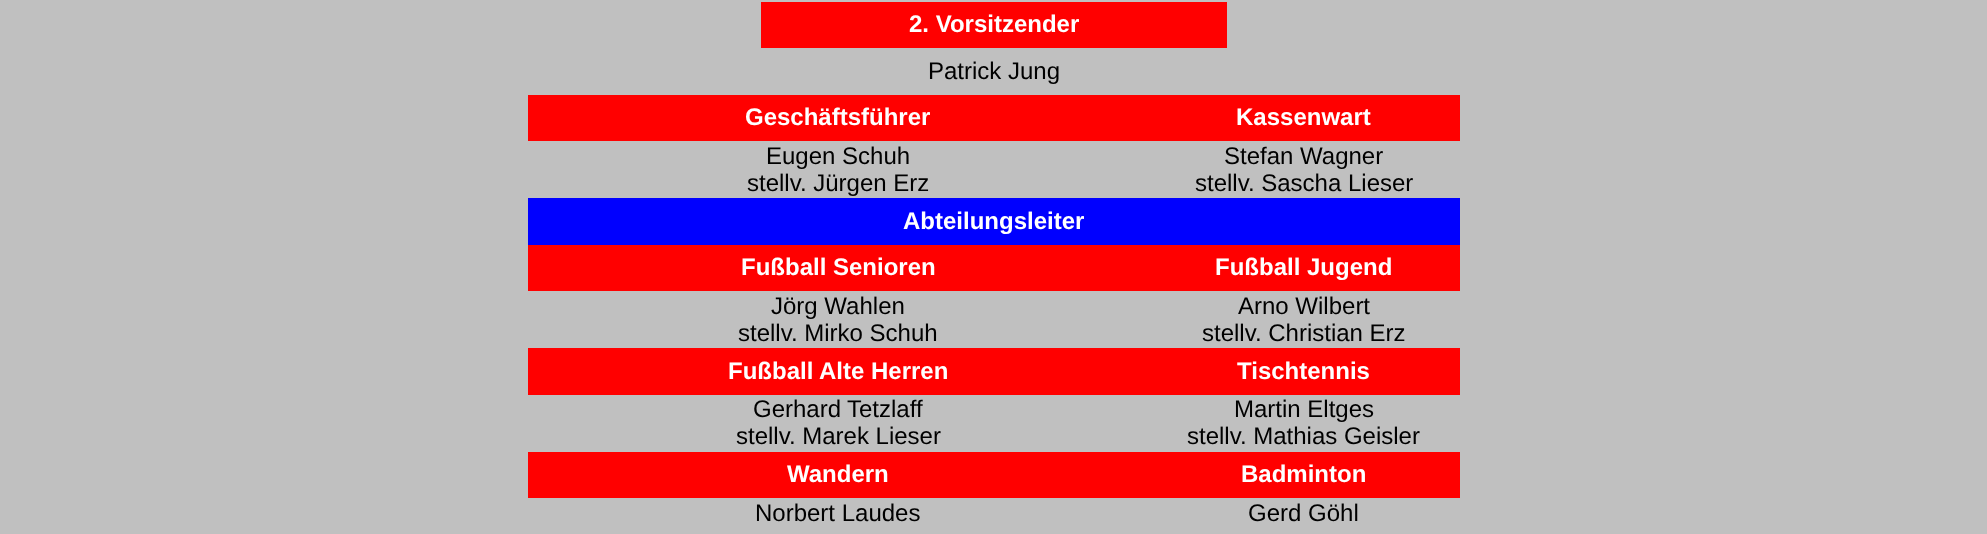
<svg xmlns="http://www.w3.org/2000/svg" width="1987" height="534">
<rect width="100%" height="100%" fill="#c0c0c0"/>
<rect x="761" y="2" width="466" height="46" fill="#f00"/>
<text x="909" y="32" style="font-family:Liberation Sans;font-size:24px;font-weight:bold;fill:#fff">2. Vorsitzender</text>
<text x="928" y="79" style="font-family:Liberation Sans;font-size:24px;fill:#000">Patrick Jung</text>
<rect x="528" y="95" width="932" height="46" fill="#f00"/>
<text x="745" y="125" style="font-family:Liberation Sans;font-size:24px;font-weight:bold;fill:#fff">Geschäftsführer</text>
<text x="1236" y="125" style="font-family:Liberation Sans;font-size:24px;font-weight:bold;fill:#fff">Kassenwart</text>
<text x="766" y="164" style="font-family:Liberation Sans;font-size:24px;fill:#000">Eugen Schuh</text>
<text x="747" y="191" style="font-family:Liberation Sans;font-size:24px;fill:#000">stellv. Jürgen Erz</text>
<text x="1224" y="164" style="font-family:Liberation Sans;font-size:24px;fill:#000">Stefan Wagner</text>
<text x="1195" y="191" style="font-family:Liberation Sans;font-size:24px;fill:#000">stellv. Sascha Lieser</text>
<rect x="528" y="198" width="932" height="47" fill="#00f"/>
<text x="903" y="229" style="font-family:Liberation Sans;font-size:24px;font-weight:bold;fill:#fff">Abteilungsleiter</text>
<rect x="528" y="245" width="932" height="46" fill="#f00"/>
<text x="741" y="275" style="font-family:Liberation Sans;font-size:24px;font-weight:bold;fill:#fff">Fußball Senioren</text>
<text x="1215" y="275" style="font-family:Liberation Sans;font-size:24px;font-weight:bold;fill:#fff">Fußball Jugend</text>
<text x="771" y="314" style="font-family:Liberation Sans;font-size:24px;fill:#000">Jörg Wahlen</text>
<text x="738" y="341" style="font-family:Liberation Sans;font-size:24px;fill:#000">stellv. Mirko Schuh</text>
<text x="1238" y="314" style="font-family:Liberation Sans;font-size:24px;fill:#000">Arno Wilbert</text>
<text x="1202" y="341" style="font-family:Liberation Sans;font-size:24px;fill:#000">stellv. Christian Erz</text>
<rect x="528" y="348" width="932" height="47" fill="#f00"/>
<text x="728" y="379" style="font-family:Liberation Sans;font-size:24px;font-weight:bold;fill:#fff">Fußball</text>
<text x="819" y="379" style="font-family:Liberation Sans;font-size:24px;font-weight:bold;fill:#fff">Alte Herren</text>
<text x="1237" y="379" style="font-family:Liberation Sans;font-size:24px;font-weight:bold;fill:#fff">Tischtennis</text>
<text x="753" y="417" style="font-family:Liberation Sans;font-size:24px;fill:#000">Gerhard</text>
<text x="847" y="417" style="font-family:Liberation Sans;font-size:24px;fill:#000">Tetzlaff</text>
<text x="736" y="444" style="font-family:Liberation Sans;font-size:24px;fill:#000">stellv. Marek Lieser</text>
<text x="1234" y="417" style="font-family:Liberation Sans;font-size:24px;fill:#000">Martin Eltges</text>
<text x="1187" y="444" style="font-family:Liberation Sans;font-size:24px;fill:#000">stellv. Mathias Geisler</text>
<rect x="528" y="452" width="932" height="46" fill="#f00"/>
<text x="787" y="482" style="font-family:Liberation Sans;font-size:24px;font-weight:bold;fill:#fff">Wandern</text>
<text x="1241" y="482" style="font-family:Liberation Sans;font-size:24px;font-weight:bold;fill:#fff">Badminton</text>
<text x="755" y="521" style="font-family:Liberation Sans;font-size:24px;fill:#000">Norbert Laudes</text>
<text x="1248" y="521" style="font-family:Liberation Sans;font-size:24px;fill:#000">Gerd Göhl</text>
</svg>
